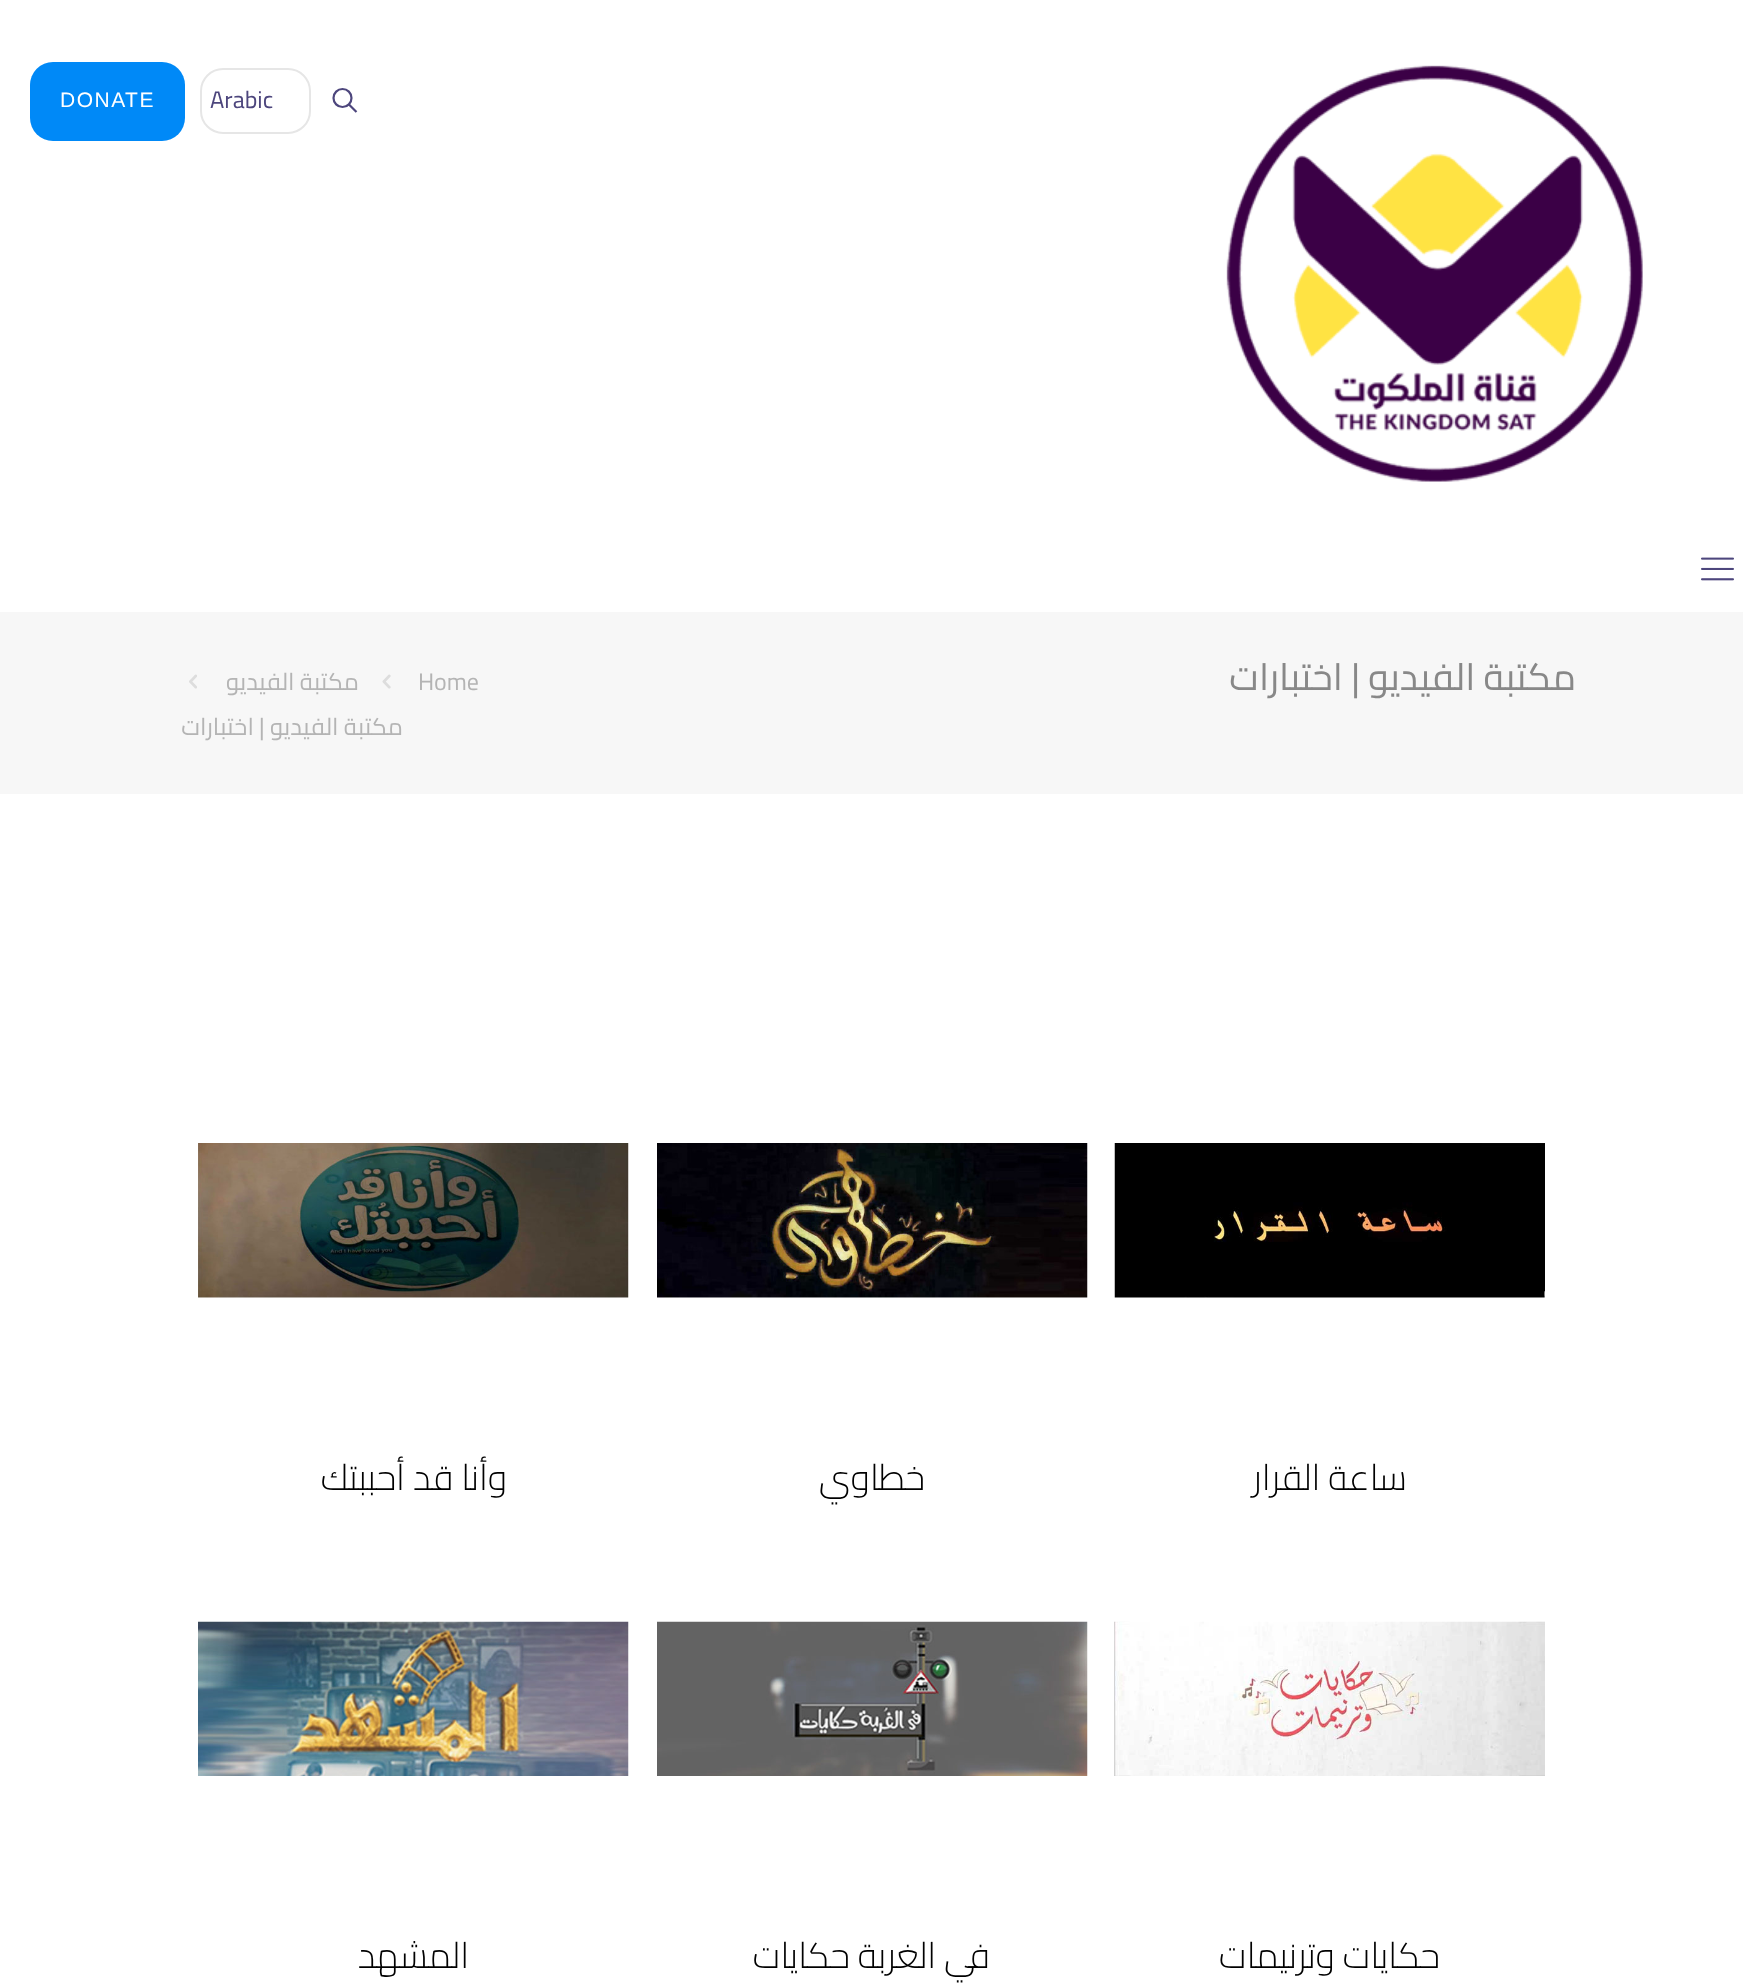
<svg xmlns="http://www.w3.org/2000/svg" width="1743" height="1988">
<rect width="100%" height="100%" fill="#fff"/>
<image x="1226" y="65" width="417" height="417" href="media/1.png"/>
<image x="1701" y="557" width="33" height="24" href="media/2.png"/>
<circle cx="342.5" cy="98" r="9" fill="none" stroke="#4d467d" stroke-width="2.2"/>
<path d="M349 104.5l7.5 7.5" fill="none" stroke="#4d467d" stroke-width="2.2"/>
<rect x="201" y="69" width="109" height="64" rx="22" fill="none" stroke="#e6e6e6" stroke-width="2"/>
<text x="210" y="108" style="font-family:Cairo;font-size:24px;fill:#4d467d">Arabic</text>
<rect x="30" y="62" width="155" height="79" rx="23" fill="#0089f7"/>
<text x="60" y="107" style="font-family:Liberation Sans;font-size:21px;letter-spacing:1.5px;fill:#fff">DONATE</text>
<rect y="612" width="1743" height="182" fill="#f7f7f7"/>
<text x="1576" y="690" style="font-family:Cairo;font-size:37.5px;direction:rtl;fill:#888">مكتبة الفيديو | اختبارات</text>
<text x="418" y="690" style="font-family:Cairo;font-size:24px;fill:#b4b4b4">Home</text>
<image x="382" y="674" width="9" height="15" href="media/3.png"/>
<text x="359" y="690" style="font-family:Cairo;font-size:24px;direction:rtl;fill:#b4b4b4">مكتبة الفيديو</text>
<image x="189" y="674" width="8" height="15" href="media/4.png"/>
<text x="403" y="735" style="font-family:Cairo;font-size:24px;direction:rtl;fill:#b4b4b4">مكتبة الفيديو | اختبارات</text>
<image x="1114" y="1143" width="431" height="155" href="media/5.png"/>
<text x="1407" y="1490" style="font-family:Cairo;font-size:36px;font-weight:300;direction:rtl;fill:#000">ساعة القرار</text>
<image x="657" y="1143" width="431" height="155" href="media/6.png"/>
<text x="925" y="1490" style="font-family:Cairo;font-size:36px;font-weight:300;direction:rtl;fill:#000">خطاوي</text>
<image x="198" y="1143" width="431" height="155" href="media/7.png"/>
<text x="507" y="1490" style="font-family:Cairo;font-size:36px;font-weight:300;direction:rtl;fill:#000">وأنا قد أحببتك</text>
<image x="1114" y="1621" width="431" height="155" href="media/8.png"/>
<text x="1440" y="1968" style="font-family:Cairo;font-size:36px;font-weight:300;direction:rtl;fill:#000">حكايات وترنيمات</text>
<image x="657" y="1621" width="431" height="155" href="media/9.png"/>
<text x="990" y="1968" style="font-family:Cairo;font-size:36px;font-weight:300;direction:rtl;fill:#000">في الغربة حكايات</text>
<image x="198" y="1621" width="431" height="155" href="media/10.png"/>
<text x="469" y="1968" style="font-family:Cairo;font-size:36px;font-weight:300;direction:rtl;fill:#000">المشهد</text>
</svg>
